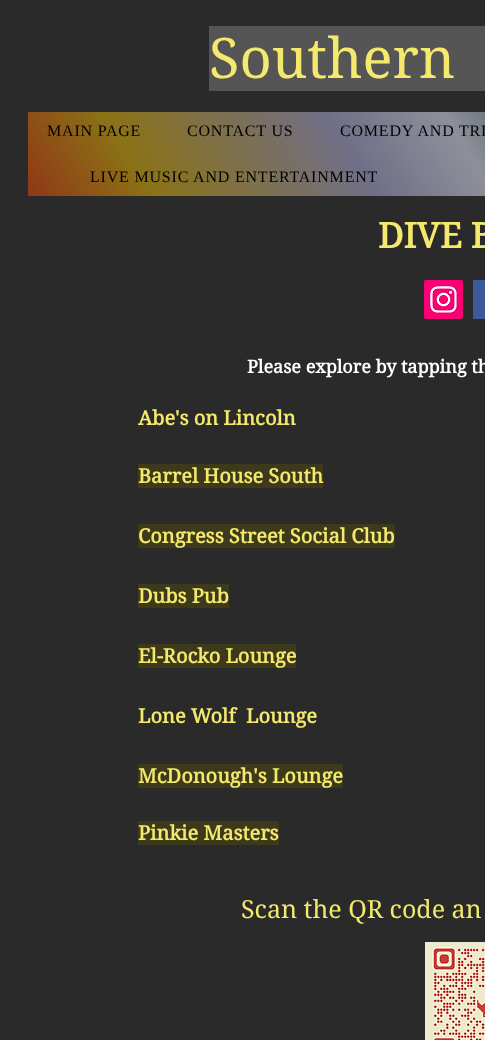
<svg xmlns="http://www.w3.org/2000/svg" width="485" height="1040">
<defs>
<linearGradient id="g1" gradientUnits="userSpaceOnUse" x1="138" y1="373" x2="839" y2="-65"><stop offset="0" stop-color="#903716"/><stop offset="0.13" stop-color="#8b7216"/><stop offset="0.36" stop-color="#706f88"/><stop offset="0.48" stop-color="#8d9099"/><stop offset="0.59" stop-color="#48565a"/><stop offset="0.76" stop-color="#4f6064"/><stop offset="0.86" stop-color="#555464"/><stop offset="0.99" stop-color="#7671b5"/></linearGradient>
</defs>
<rect width="100%" height="100%" fill="#2a2a2a"/>
<rect x="209" y="26" width="276" height="65" fill="#555"/>
<text x="209" y="78" style="font-family:'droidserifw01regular';font-size:56px;fill:#f4e96d">Southern</text>
<rect x="28" y="112" width="457" height="84" fill="url(#g1)"/>
<text x="47" y="136" style="font-family:Liberation Serif;font-size:16px;letter-spacing:0.8px;fill:#000">MAIN PAGE</text>
<text x="187" y="136" style="font-family:Liberation Serif;font-size:16px;letter-spacing:0.8px;fill:#000">CONTACT US</text>
<text x="340" y="136" style="font-family:Liberation Serif;font-size:16px;letter-spacing:0.8px;fill:#000">COMEDY AND TRI</text>
<text x="90" y="182" style="font-family:Liberation Serif;font-size:16px;letter-spacing:0.8px;fill:#000">LIVE MUSIC AND ENTERTAINMENT</text>
<text x="378" y="248" style="font-family:'droidserifw01regular';font-size:35px;font-weight:bold;fill:#f4e96d">DIVE B</text>
<image x="424" y="280" width="39" height="39" href="media/1.png"/>
<rect x="473" y="280" width="12" height="39" fill="#3d5a98"/>
<text x="247" y="373" style="font-family:'droidserifw01regular';font-size:18px;font-weight:bold;fill:#fff">Please explore by tapping th</text>
<text x="138" y="425" style="font-family:'droidserifw01regular';font-size:20px;font-weight:bold;fill:#f4e96d">Abe's on Lincoln</text>
<rect x="138" y="464" width="185" height="24" fill="#3d3a1b"/>
<text x="138" y="483" style="font-family:'droidserifw01regular';font-size:20px;font-weight:bold;fill:#f4e96d">Barrel House South</text>
<rect x="138" y="524" width="257" height="24" fill="#3d3a1b"/>
<text x="138" y="543" style="font-family:'droidserifw01regular';font-size:20px;font-weight:bold;fill:#f4e96d">Congress Street Social Club</text>
<rect x="138" y="584" width="91" height="24" fill="#3d3a1b"/>
<text x="138" y="603" style="font-family:'droidserifw01regular';font-size:20px;font-weight:bold;fill:#f4e96d">Dubs Pub</text>
<rect x="138" y="644" width="158" height="24" fill="#3d3a1b"/>
<text x="138" y="663" style="font-family:'droidserifw01regular';font-size:20px;font-weight:bold;fill:#f4e96d">El-Rocko Lounge</text>
<text x="138" y="723" style="font-family:'droidserifw01regular';font-size:20px;font-weight:bold;fill:#f4e96d">Lone Wolf</text>
<text x="246" y="723" style="font-family:'droidserifw01regular';font-size:20px;font-weight:bold;fill:#f4e96d">Lounge</text>
<rect x="138" y="764" width="205" height="24" fill="#3d3a1b"/>
<text x="138" y="783" style="font-family:'droidserifw01regular';font-size:20px;font-weight:bold;fill:#f4e96d">McDonough's Lounge</text>
<rect x="138" y="821" width="141" height="24" fill="#3d3a1b"/>
<text x="138" y="840" style="font-family:'droidserifw01regular';font-size:20px;font-weight:bold;fill:#f4e96d">Pinkie Masters</text>
<text x="241" y="918" style="font-family:'droidserifw01regular';font-size:25px;fill:#f4e96d">Scan the QR code an</text>
<image x="425" y="942" width="60" height="98" href="media/2.png"/>
</svg>
